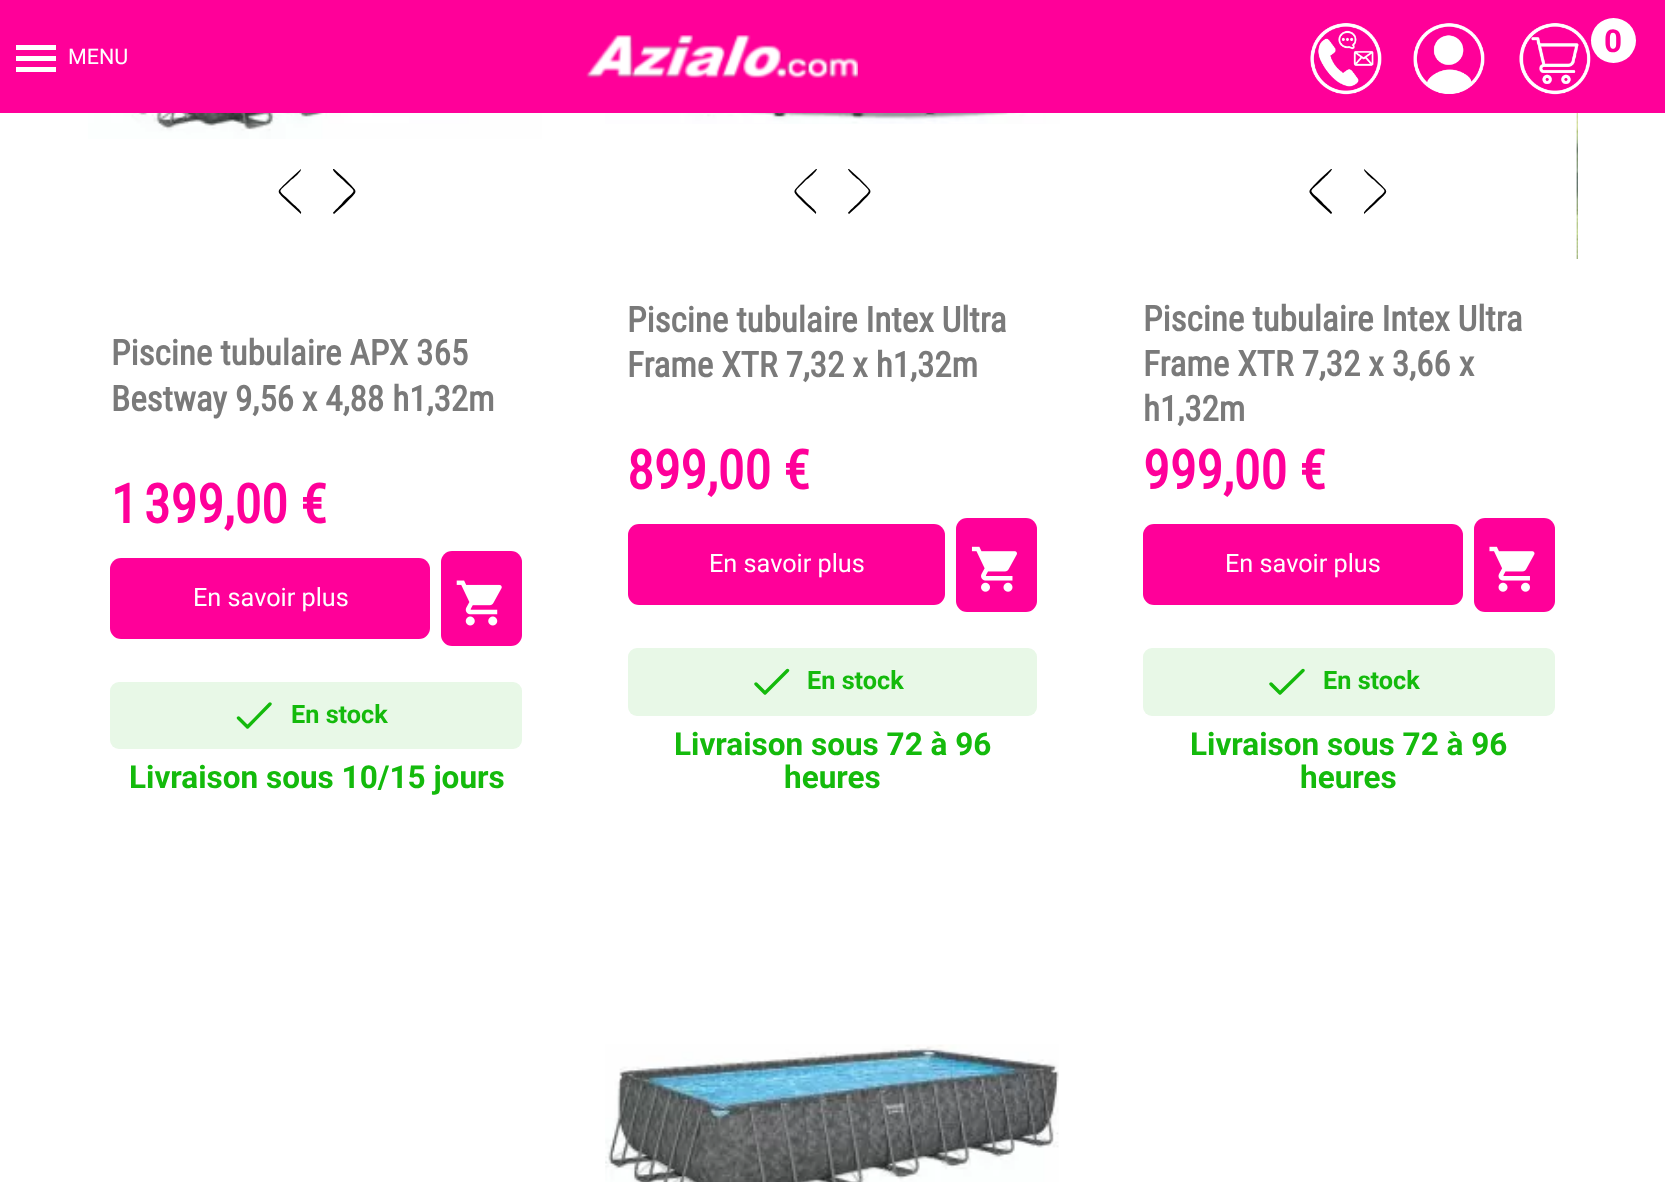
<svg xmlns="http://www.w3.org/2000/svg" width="1665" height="1182">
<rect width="100%" height="100%" fill="#fff"/>
<rect width="1665" height="113" fill="#f09"/>
<image x="1310" y="23" width="72" height="72" href="media/1.png"/>
<image x="1413" y="23" width="72" height="71" href="media/2.png"/>
<image x="1519" y="23" width="72" height="72" href="media/3.png"/>
<circle cx="1613.5" cy="40.5" r="22.5" fill="#fff"/>
<text x="1604" y="52" style="font-family:Roboto;font-size:31.5px;font-weight:bold;fill:#f09">0</text>
<path d="M16 45h40v5h-40zm0 16v-5h40v5zm0 11v-5h40v5z" fill="#fff"/>
<text x="68" y="64" style="font-family:Roboto;font-size:21.5px;fill:#fff">MENU</text>
<image x="586" y="35" width="272" height="43" href="media/4.png"/>
<image x="88" y="113" width="454" height="26" href="media/5.png"/>
<path d="M301 169c1 2-8 10-10 11c-14 14-14 8 0 22c2 2 12 10 10 11v1l-11-10c-15-15-15-10 0-25z" fill="#000"/>
<path d="M334 214l-1-1c0-1 9-9 10-11c14-14 14-8 0-22c-1-1-11-9-10-11h1l11 10c14 15 14 10 0 25z" fill="#000"/>
<text x="111" y="365" style="font-family:Roboto Condensed;font-size:35.1px;font-weight:bold;fill:#7a7a7a">Piscine tubulaire APX 365</text>
<text x="111" y="411" style="font-family:Roboto Condensed;font-size:35.1px;font-weight:bold;fill:#7a7a7a">Bestway 9,56 x 4,88 h1,32m</text>
<text x="111" y="523" style="font-family:Roboto Condensed;font-size:54px;font-weight:bold;fill:#f09">1 399,00 €</text>
<rect x="110" y="558" width="320" height="81" rx="11" fill="#f09"/>
<text x="193" y="606" style="font-family:Roboto;font-size:25.25px;fill:#fff">En savoir plus</text>
<rect x="441" y="551" width="81" height="95" rx="11" fill="#f09"/>
<image x="456" y="580" width="46" height="46" href="media/6.png"/>
<rect x="110" y="682" width="412" height="67" rx="9" fill="#e8f8e7"/>
<path d="M238.5 718l9 9l22.5-23" fill="none" stroke="#14ba0c" stroke-width="3.4" stroke-linecap="round" stroke-linejoin="round"/>
<text x="291" y="723" style="font-family:Roboto;font-size:25.25px;font-weight:bold;fill:#14ba0c">En stock</text>
<text x="129" y="788" style="font-family:Roboto;font-size:31.5px;font-weight:bold;fill:#14ba0c">Livraison sous 10/15 jours</text>
<image x="605" y="113" width="455" height="11" href="media/7.png"/>
<path d="M816 169h1c0 2-9 10-11 11c-13 14-13 8 0 22c2 2 12 10 10 11v1l-11-10c-14-15-14-10 0-25z" fill="#000"/>
<path d="M849 214l-1-1c0-1 9-9 11-11c13-14 13-8 0-22c-2-1-11-9-11-11h1l11 10c14 15 14 10 0 25z" fill="#000"/>
<text x="627" y="332" style="font-family:Roboto Condensed;font-size:35.1px;font-weight:bold;fill:#7a7a7a">Piscine tubulaire Intex Ultra</text>
<text x="627" y="377" style="font-family:Roboto Condensed;font-size:35.1px;font-weight:bold;fill:#7a7a7a">Frame XTR 7,32 x h1,32m</text>
<text x="627" y="489" style="font-family:Roboto Condensed;font-size:54px;font-weight:bold;fill:#f09">899,00 €</text>
<rect x="628" y="524" width="317" height="81" rx="11" fill="#f09"/>
<text x="709" y="572" style="font-family:Roboto;font-size:25.25px;fill:#fff">En savoir plus</text>
<rect x="956" y="518" width="81" height="94" rx="11" fill="#f09"/>
<image x="971" y="546" width="46" height="46" href="media/8.png"/>
<rect x="628" y="648" width="409" height="68" rx="9" fill="#e8f8e7"/>
<path d="M756 684l9 9l22.5-22.5" fill="none" stroke="#14ba0c" stroke-width="3.4" stroke-linecap="round" stroke-linejoin="round"/>
<text x="807" y="689" style="font-family:Roboto;font-size:25.25px;font-weight:bold;fill:#14ba0c">En stock</text>
<text x="674" y="755" style="font-family:Roboto;font-size:31.5px;font-weight:bold;fill:#14ba0c">Livraison sous 72 à 96</text>
<text x="784" y="788" style="font-family:Roboto;font-size:31.5px;font-weight:bold;fill:#14ba0c">heures</text>
<path d="M1331 169h1c0 2-9 10-10 11c-14 14-14 8 0 22c1 2 11 10 10 11l-1 1l-11-10c-14-15-14-10 0-25z" fill="#000"/>
<path d="M1364 214v-1c-1-1 8-9 10-11c14-14 14-8 0-22c-2-1-11-9-10-11l11 10c15 15 15 10 0 25z" fill="#000"/>
<image x="1576" y="113" width="2" height="146" href="media/9.png"/>
<text x="1143" y="331" style="font-family:Roboto Condensed;font-size:35.1px;font-weight:bold;fill:#7a7a7a">Piscine tubulaire Intex Ultra</text>
<text x="1143" y="376" style="font-family:Roboto Condensed;font-size:35.1px;font-weight:bold;fill:#7a7a7a">Frame XTR 7,32 x 3,66 x</text>
<text x="1143" y="421" style="font-family:Roboto Condensed;font-size:35.1px;font-weight:bold;fill:#7a7a7a">h1,32m</text>
<text x="1143" y="489" style="font-family:Roboto Condensed;font-size:54px;font-weight:bold;fill:#f09">999,00 €</text>
<rect x="1143" y="524" width="320" height="81" rx="11" fill="#f09"/>
<text x="1225" y="572" style="font-family:Roboto;font-size:25.25px;fill:#fff">En savoir plus</text>
<rect x="1474" y="518" width="81" height="94" rx="11" fill="#f09"/>
<image x="1489" y="546" width="46" height="46" href="media/10.png"/>
<rect x="1143" y="648" width="412" height="68" rx="9" fill="#e8f8e7"/>
<path d="M1271 684l9 9l23-22.5" fill="none" stroke="#14ba0c" stroke-width="3.4" stroke-linecap="round" stroke-linejoin="round"/>
<text x="1323" y="689" style="font-family:Roboto;font-size:25.25px;font-weight:bold;fill:#14ba0c">En stock</text>
<text x="1190" y="755" style="font-family:Roboto;font-size:31.5px;font-weight:bold;fill:#14ba0c">Livraison sous 72 à 96</text>
<text x="1300" y="788" style="font-family:Roboto;font-size:31.5px;font-weight:bold;fill:#14ba0c">heures</text>
<image x="605" y="1044" width="454" height="138" href="media/11.png"/>
</svg>
